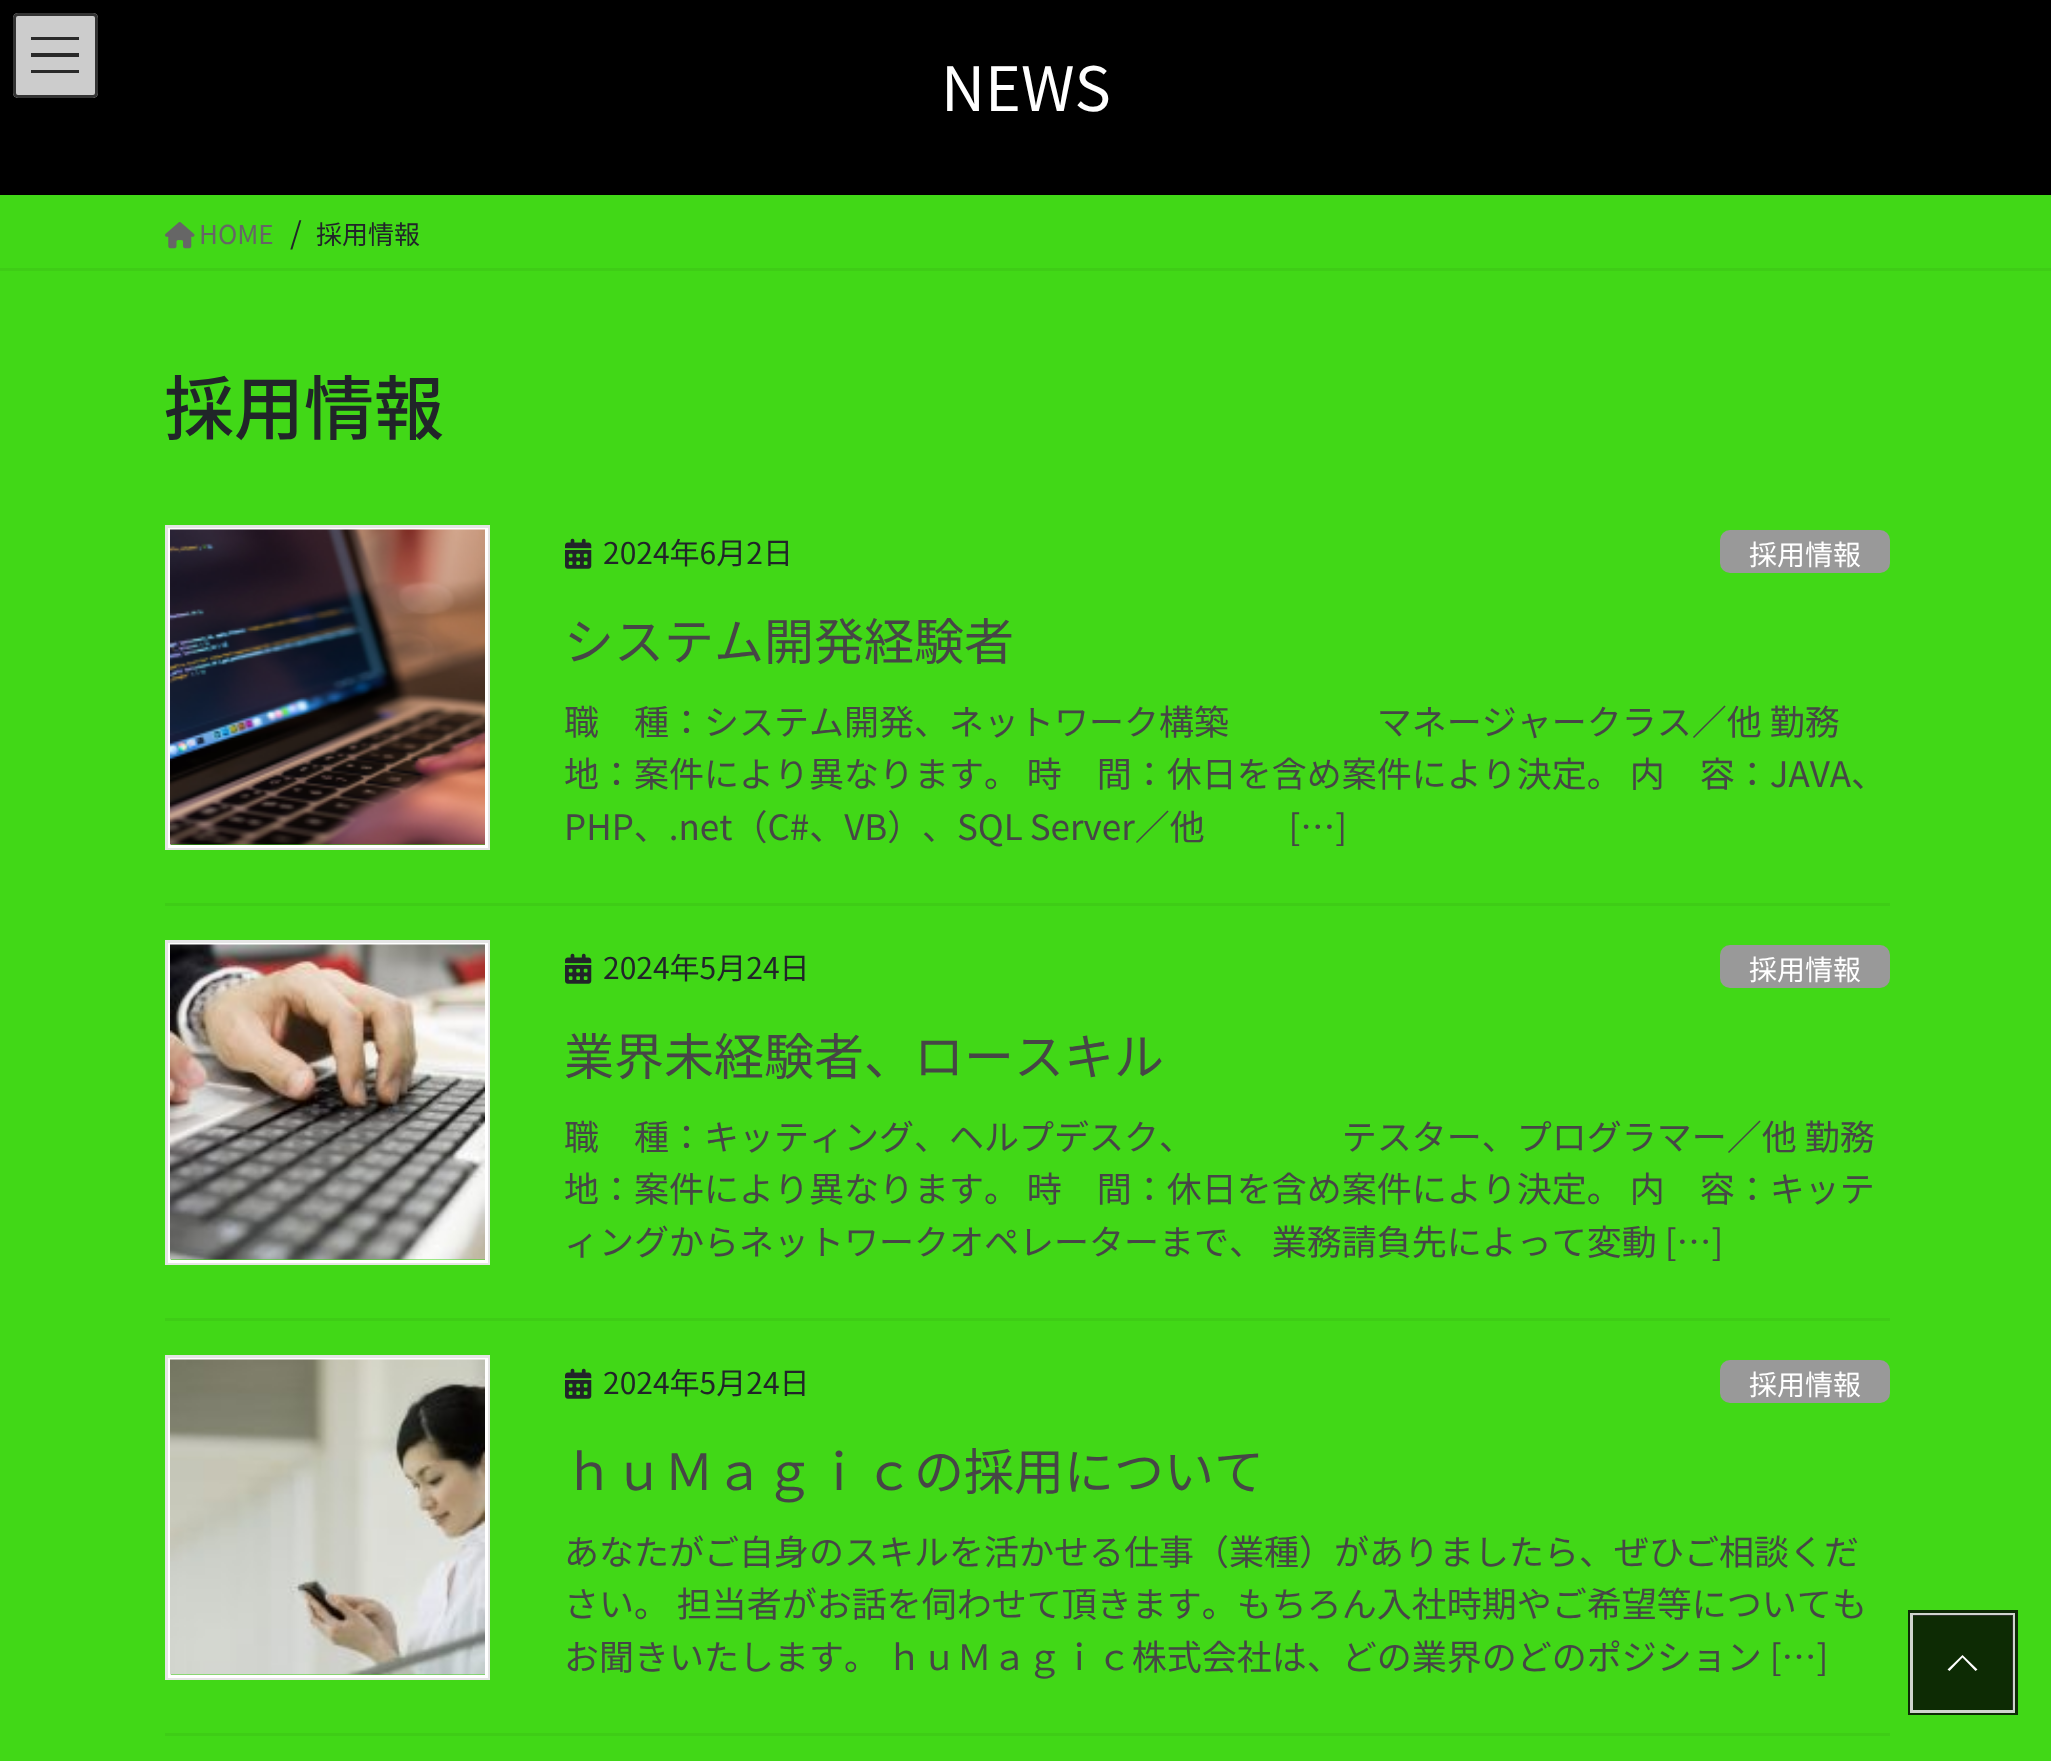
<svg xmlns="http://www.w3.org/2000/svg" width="2051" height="1761">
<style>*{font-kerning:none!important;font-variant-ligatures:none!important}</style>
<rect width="100%" height="100%" fill="#41d817"/>
<rect width="2051" height="195" fill="#000"/>
<rect x="13" y="13" width="85" height="85" rx="5" fill="#ccc"/>
<rect x="31" y="37" width="48" height="3" fill="#292929"/>
<rect x="31" y="53" width="48" height="4" fill="#292929"/>
<rect x="31" y="70" width="48" height="3" fill="#292929"/>
<rect x="14.5" y="14.5" width="82" height="82" rx="3.5" fill="none" stroke="#333" stroke-width="3"/>
<text x="941" y="111" style="font-family:Noto Sans JP;font-size:61px;fill:#fff">NEWS</text>
<rect y="268" width="2051" height="3" fill="#3ecd16"/>
<image x="165" y="222" width="30" height="27" href="media/1.png"/>
<text x="199" y="244" style="font-family:Noto Sans JP;font-size:26px;fill:#666">HOME</text>
<text x="290" y="244" style="font-family:Noto Sans JP;font-size:30px;fill:#212529">/</text>
<text x="316" y="244" style="font-family:Noto Sans JP;font-size:26px;fill:#212529">採用情報</text>
<text x="164" y="434" style="font-family:Noto Sans JP;font-size:70px;font-weight:500;fill:#212529">採用情報</text>
<rect x="165" y="903" width="1725" height="3" fill="#3ecd16"/>
<rect x="166.5" y="526.5" width="322" height="322" fill="none" stroke="#e5e5e5" stroke-width="3"/>
<rect x="169.5" y="529.5" width="317" height="317" fill="none" stroke="#fff" stroke-width="3"/>
<image x="170" y="529" width="315" height="316" href="media/2.png"/>
<image x="565" y="538" width="27" height="31" href="media/3.png"/>
<text x="603" y="564" style="font-family:Noto Sans JP;font-size:30px;fill:#212529">2024年6月2日</text>
<rect x="1720" y="530" width="170" height="43" rx="10" fill="#999"/>
<text x="1749" y="565" style="font-family:Noto Sans JP;font-size:28px;fill:#fff">採用情報</text>
<text x="564" y="660" style="font-family:Noto Sans JP;font-size:50px;fill:#464646">システム開発経験者</text>
<text x="564" y="735" style="font-family:Noto Sans JP;font-size:35px;fill:#464646">職　種：システム開発、ネットワーク構築 　　　　マネージャークラス／他 勤務</text>
<text x="564" y="787" style="font-family:Noto Sans JP;font-size:35px;fill:#464646">地：案件により異なります。 時　間：休日を含め案件により決定。 内　容：JAVA</text>
<text x="1851" y="787" style="font-family:Noto Sans JP;font-size:35px;fill:#464646">、</text>
<text x="564" y="840" word-spacing="-1" style="font-family:Noto Sans JP;font-size:35px;fill:#464646">PHP、.net（C#、VB）</text>
<text x="922" y="840" word-spacing="-1" style="font-family:Noto Sans JP;font-size:35px;fill:#464646">、SQL Server／他 　　 […]</text>
<rect x="165" y="1318" width="1725" height="3" fill="#3ecd16"/>
<rect x="166.5" y="941.5" width="322" height="322" fill="none" stroke="#e5e5e5" stroke-width="3"/>
<rect x="169.5" y="944.5" width="317" height="317" fill="none" stroke="#fff" stroke-width="3"/>
<image x="170" y="944" width="315" height="316" href="media/4.png"/>
<image x="565" y="953" width="27" height="31" href="media/3.png"/>
<text x="603" y="979" style="font-family:Noto Sans JP;font-size:30px;fill:#212529">2024年5月24日</text>
<rect x="1720" y="945" width="170" height="43" rx="10" fill="#999"/>
<text x="1749" y="980" style="font-family:Noto Sans JP;font-size:28px;fill:#fff">採用情報</text>
<text x="564" y="1075" style="font-family:Noto Sans JP;font-size:50px;fill:#464646">業界未経験者、ロースキル</text>
<text x="564" y="1150" style="font-family:Noto Sans JP;font-size:35px;fill:#464646">職　種：キッティング、ヘルプデスク</text>
<text x="1159" y="1150" style="font-family:Noto Sans JP;font-size:35px;fill:#464646">、 　　　　テスター、プログラマー／他 勤務</text>
<text x="564" y="1202" style="font-family:Noto Sans JP;font-size:35px;fill:#464646">地：案件により異なります。 時　間：休日を含め案件により決定。 内　容：キッテ</text>
<text x="564" y="1255" style="font-family:Noto Sans JP;font-size:35px;fill:#464646">ィングからネットワークオペレーターまで、 業務請負先によって変動 […]</text>
<rect x="165" y="1733" width="1725" height="3" fill="#3ecd16"/>
<rect x="166.5" y="1356.5" width="322" height="322" fill="none" stroke="#e5e5e5" stroke-width="3"/>
<rect x="169.5" y="1359.5" width="317" height="317" fill="none" stroke="#fff" stroke-width="3"/>
<image x="170" y="1359" width="315" height="316" href="media/5.png"/>
<image x="565" y="1368" width="27" height="31" href="media/3.png"/>
<text x="603" y="1394" style="font-family:Noto Sans JP;font-size:30px;fill:#212529">2024年5月24日</text>
<rect x="1720" y="1360" width="170" height="43" rx="10" fill="#999"/>
<text x="1749" y="1395" style="font-family:Noto Sans JP;font-size:28px;fill:#fff">採用情報</text>
<text x="564" y="1490" style="font-family:Noto Sans JP;font-size:50px;fill:#464646">ｈｕＭａｇｉｃの採用について</text>
<text x="564" y="1565" style="font-family:Noto Sans JP;font-size:35px;fill:#464646">あなたがご自身のスキルを活かせる仕事（業種）がありましたら、ぜひご相談くだ</text>
<text x="564" y="1617" style="font-family:Noto Sans JP;font-size:35px;fill:#464646">さい。 担当者がお話を伺わせて頂きます。もちろん入社時期やご希望等について</text>
<text x="1832" y="1617" style="font-family:Noto Sans JP;font-size:35px;fill:#464646">も</text>
<text x="564" y="1670" style="font-family:Noto Sans JP;font-size:35px;fill:#464646">お聞きいたします。 ｈｕＭａｇｉｃ株式会社は、どの業界のどのポジション […]</text>
<rect x="1910.5" y="1612.5" width="105" height="100" fill="none" stroke="#0d2b05" stroke-width="5"/>
<rect x="1911.5" y="1614.5" width="102" height="97" fill="none" stroke="#ffffffcc" stroke-width="3"/>
<rect x="1913" y="1615" width="100" height="95" fill="#000000cc"/>
<path d="M1977.5 1669.5l-2 1.5l-13-13.5l-13 13.5l-2-1.5l15-14.5z" fill="#fff"/>
</svg>
